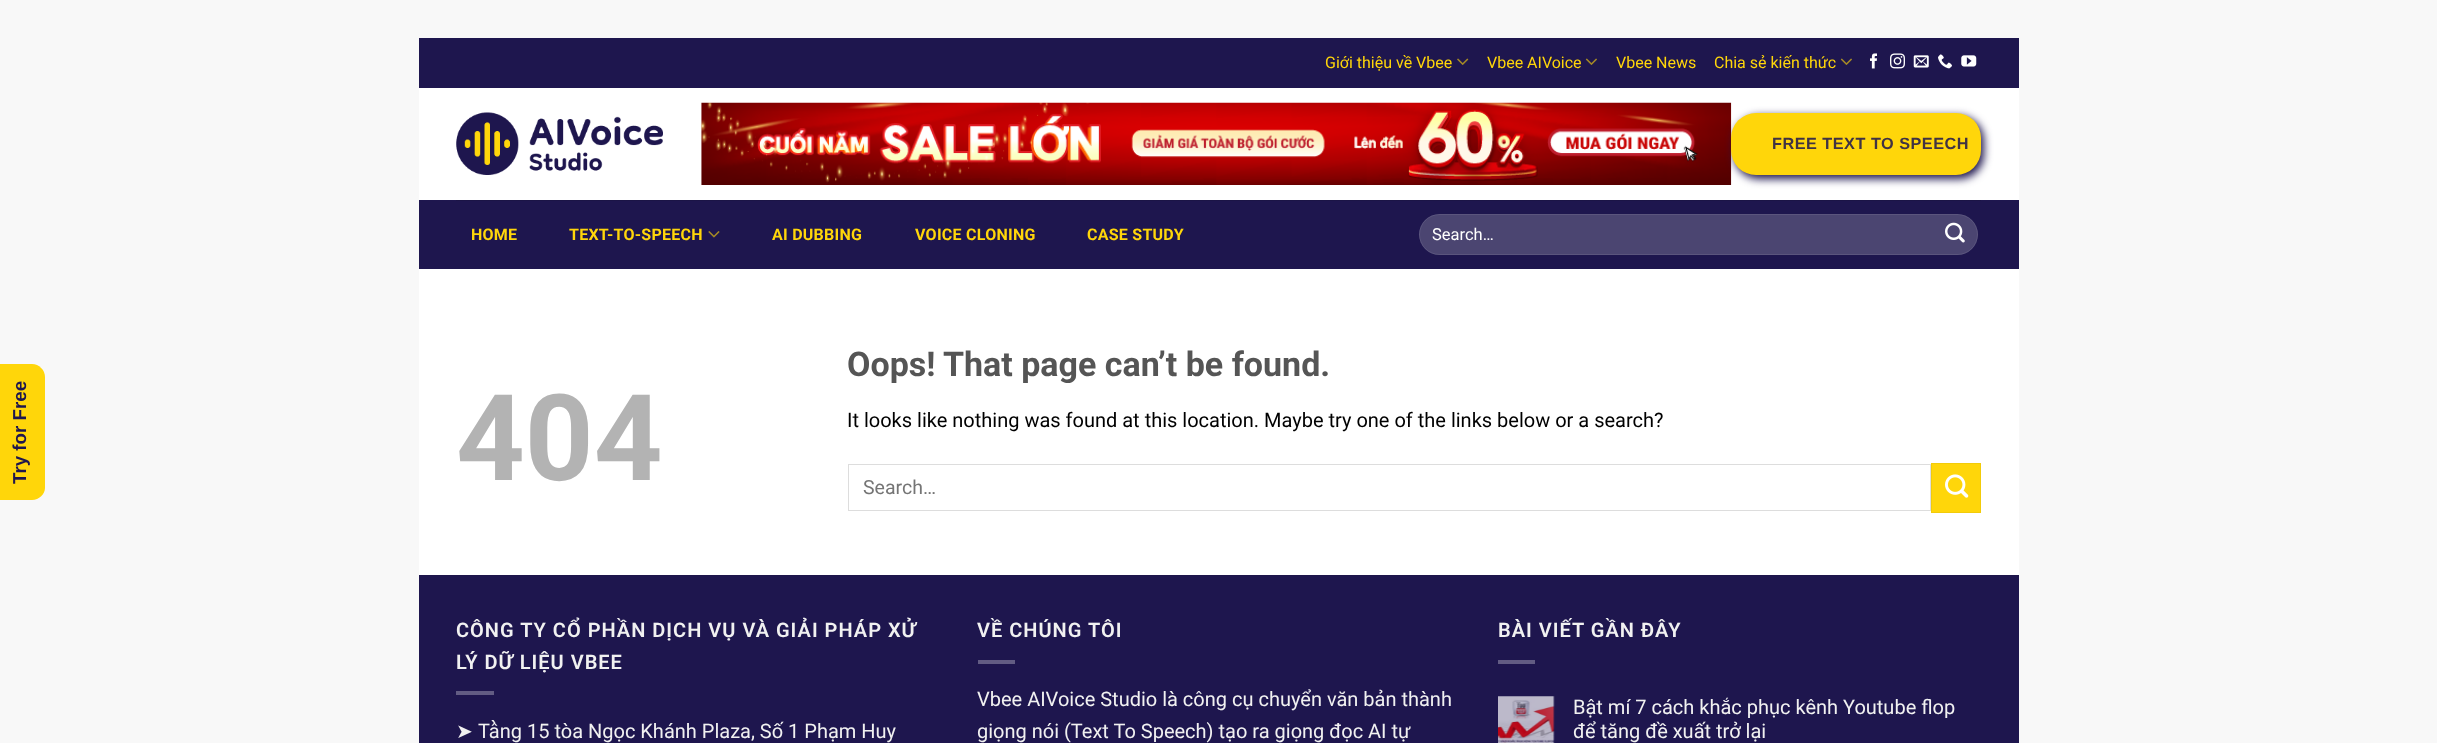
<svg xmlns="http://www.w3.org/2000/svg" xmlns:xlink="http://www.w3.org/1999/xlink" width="2437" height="743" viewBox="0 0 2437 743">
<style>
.cls-1{font:bold 18.75px Liberation Sans;fill:#1e164e}
.cls-2{font:16px Roboto;fill:#ffd60a}
.cls-3{font:bold 16.25px Liberation Sans;letter-spacing:0.5px;fill:#403344}
.cls-4{font:bold 16px Roboto;letter-spacing:0.25px;fill:#ffd60a}
.cls-5{font:16.5px Roboto;fill:#ffffff}
.cls-6{font:bold 120px Roboto;fill:#b3b3b3}
.cls-7{font:bold 34px Roboto;fill:#555555}
.cls-8{font:20px Roboto;fill:#000000}
.cls-9{font:19.5px Roboto;fill:#757575}
.cls-10{font:600 20px Roboto;letter-spacing:1px;fill:#f1f1f1}
.cls-11{font:20px DejaVu Sans;fill:#f1f1f1}
.cls-12{font:20px Roboto;fill:#f1f1f1}
</style>
<rect width="100%" height="100%" fill="#f8f8f8"/>
<path fill="#ffd60a" d="M-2 500V364H32C39 364 45 370 45 377V488C45 494 39 500 32 500Z"/>
<rect fill="#ffffff" x="419" y="88" width="1600" height="487"/>
<rect fill="#1e164e" x="419" y="38" width="1600" height="50"/>
<image xlink:href="image0.png" x="1457" y="58" width="12" height="7"/>
<image xlink:href="image1.png" x="1585" y="58" width="12" height="7"/>
<image xlink:href="image1.png" x="1840" y="58" width="12" height="7"/>
<image xlink:href="image2.png" x="1870" y="53" width="7" height="16"/>
<image xlink:href="image3.png" x="1890" y="53" width="15" height="16"/>
<image xlink:href="image4.png" x="1913" y="55" width="16" height="13"/>
<image xlink:href="image5.png" x="1938" y="54" width="14" height="15"/>
<image xlink:href="image6.png" x="1961" y="55" width="16" height="12"/>
<image xlink:href="image7.png" x="456" y="112" width="207" height="63"/>
<image xlink:href="image8.png" x="701" y="102" width="1031" height="83"/>
<rect fill="#1e164e" filter="blur(4.5px)" x="1734" y="116" width="250" height="63" rx="25"/>
<rect fill="#ffd60a" x="1731" y="113" width="250" height="62" rx="25"/>
<rect fill="#1e164e" x="419" y="200" width="1600" height="69"/>
<rect fill="#1b1446" x="456" y="200" width="1525" height="1"/>
<image xlink:href="image9.png" x="708" y="231" width="12" height="7"/>
<rect fill="#4b4571" x="1419" y="214" width="559" height="41" rx="20.5"/>
<rect fill="none" stroke="#ffffff" stroke-opacity="0.09" x="1419.5" y="214.5" width="558" height="40" rx="20"/>
<image xlink:href="image10.png" x="1945" y="222" width="20" height="21"/>
<rect fill="none" stroke="#dddddd" x="848.5" y="464.5" width="1082" height="46"/>
<rect fill="#ffd60a" stroke="#f2cb0a" x="1931.5" y="463.5" width="49" height="49"/>
<image xlink:href="image11.png" x="1945" y="474" width="24" height="24"/>
<rect fill="#1e164e" x="419" y="576" width="1600" height="167"/>
<rect fill="#1d154a" x="419" y="575" width="1600" height="1"/>
<rect fill="#625c83" x="456" y="691" width="38" height="4"/>
<rect fill="#625c83" x="978" y="660" width="37" height="4"/>
<rect fill="#625c83" x="1498" y="660" width="37" height="4"/>
<image xlink:href="image12.png" x="1498" y="696" width="57" height="47"/>
<text class="cls-1" x="26" y="484" transform="rotate(-90 26 484)">Try for Free</text>
<text class="cls-2" x="1325" y="68">Giới thiệu về Vbee</text>
<text class="cls-2" x="1487" y="68">Vbee AIVoice</text>
<text class="cls-2" x="1616" y="68">Vbee News</text>
<text class="cls-2" x="1714" y="68">Chia sẻ kiến thức</text>
<text class="cls-3" x="1772" y="149">FREE TEXT TO SPEECH</text>
<text class="cls-4" x="471" y="240">HOME</text>
<text class="cls-4" x="569" y="240">TEXT-TO-SPEECH</text>
<text class="cls-4" x="772" y="240">AI DUBBING</text>
<text class="cls-4" x="915" y="240">VOICE CLONING</text>
<text class="cls-4" x="1087" y="240">CASE STUDY</text>
<text class="cls-5" x="1432" y="240">Search…</text>
<text class="cls-6" x="456" y="480">404</text>
<text class="cls-7" x="847" y="376">Oops! That page can’t be found.</text>
<text class="cls-8" x="847" y="427">It looks like nothing was found at this location. Maybe try one of the links below or a search?</text>
<text class="cls-9" x="863" y="494">Search…</text>
<text class="cls-10"><tspan x="456" y="637">CÔNG TY CỔ PHẦN DỊCH VỤ VÀ GIẢI PHÁP XỬ</tspan><tspan x="456" y="669">LÝ DỮ LIỆU VBEE</tspan></text>
<text class="cls-11" x="456" y="738">➤</text>
<text class="cls-12" x="478" y="738">Tầng 15 tòa Ngọc Khánh Plaza, Số 1 Phạm Huy</text>
<text class="cls-10" x="977" y="637">VỀ CHÚNG TÔI</text>
<text class="cls-12"><tspan x="977" y="706">Vbee AIVoice Studio là công cụ chuyển văn bản thành</tspan><tspan x="977" y="738">giọng nói (Text To Speech) tạo ra giọng đọc AI tự</tspan></text>
<text class="cls-10" x="1498" y="637">BÀI VIẾT GẦN ĐÂY</text>
<text class="cls-12"><tspan x="1573" y="714">Bật mí 7 cách khắc phục kênh Youtube flop</tspan><tspan x="1573" y="738">để tăng đề xuất trở lại</tspan></text>
</svg>
